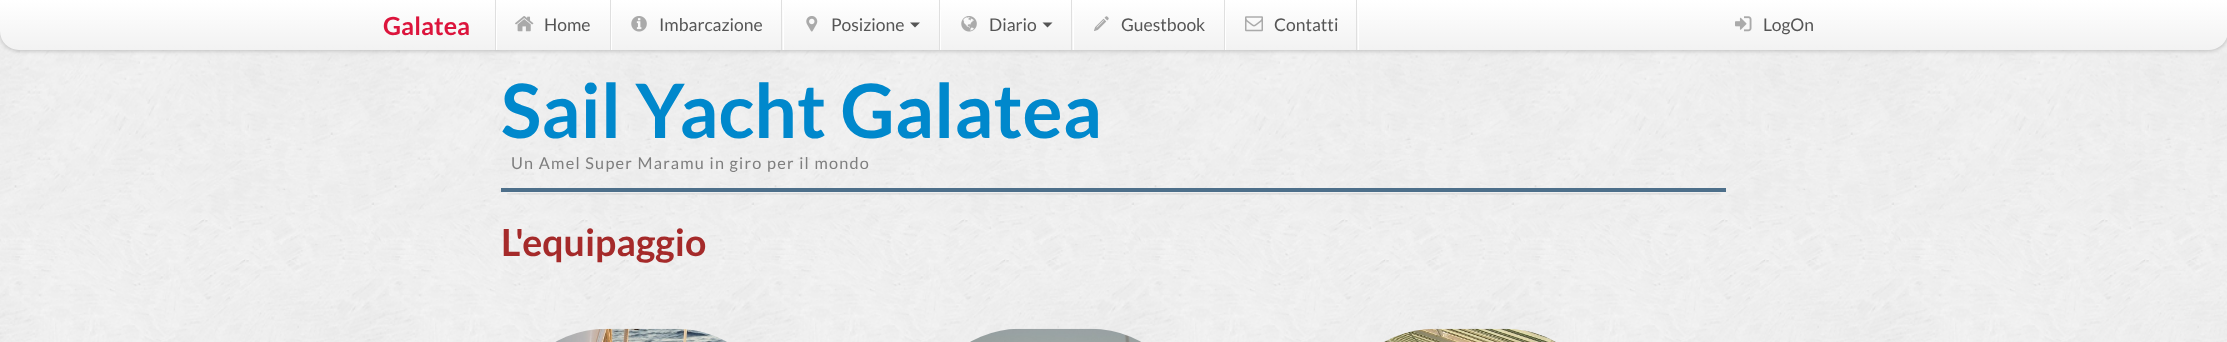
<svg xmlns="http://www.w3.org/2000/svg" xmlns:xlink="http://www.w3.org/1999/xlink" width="2227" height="342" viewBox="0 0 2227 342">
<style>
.cls-1{font:bold 25px Lato;fill:#dc143c}
.cls-2{font:17.5px Lato;fill:#555555}
.cls-3{font:bold 75px Lato;fill:#0088cc}
.cls-4{font:16.25px Lato;letter-spacing:1.25px;fill:#7e7e7e}
.cls-5{font:bold 37.5px Lato;fill:#a52a2a}
</style>
<defs>
<linearGradient id="g1" gradientUnits="userSpaceOnUse" x1="1114" y1="0" x2="1114" y2="50"><stop offset="0" stop-color="#ffffff"/><stop offset="1" stop-color="#f2f2f2"/></linearGradient>
<clipPath id="clip1"><rect x="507" y="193" width="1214" height="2"/></clipPath>
</defs>
<rect width="100%" height="100%" fill="#eeeeee"/>
<image xlink:href="image0.png" x="0" y="31" width="2227" height="311"/>
<rect fill="#000000" fill-opacity="0.2" filter="blur(2px)" x="0" y="1" width="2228" height="50" rx="19"/>
<path fill="url(#g1)" d="M0 0H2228V31C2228 41.5 2219.5 50 2209 50H19C8.5 50 0 41.5 0 31Z"/>
<rect fill="#ffffff" x="496" y="10" width="1" height="40"/>
<rect fill="#dfdfdf" x="495" y="0" width="1" height="50"/>
<image xlink:href="image1.png" x="515" y="16" width="19" height="16"/>
<rect fill="#ffffff" x="611" y="10" width="1" height="40"/>
<rect fill="#dfdfdf" x="610" y="0" width="1" height="50"/>
<image xlink:href="image2.png" x="631" y="16" width="16" height="16"/>
<rect fill="#ffffff" x="783" y="10" width="1" height="40"/>
<rect fill="#dfdfdf" x="781" y="0" width="1" height="50"/>
<image xlink:href="image3.png" x="806" y="16" width="12" height="16"/>
<path fill="#555555" d="M910 22.5H920L915 27.5Z"/>
<rect fill="#ffffff" x="940" y="10" width="1" height="40"/>
<rect fill="#dfdfdf" x="939" y="0" width="1" height="50"/>
<image xlink:href="image4.png" x="961" y="16" width="16" height="16"/>
<path fill="#555555" d="M1042.5 22.5H1052.5L1047.5 27.5Z"/>
<rect fill="#ffffff" x="1073" y="10" width="1" height="40"/>
<rect fill="#dfdfdf" x="1071" y="0" width="1" height="50"/>
<image xlink:href="image5.png" x="1094" y="16" width="15" height="15"/>
<rect fill="#ffffff" x="1225" y="10" width="1" height="40"/>
<rect fill="#dfdfdf" x="1224" y="0" width="1" height="50"/>
<image xlink:href="image6.png" x="1245" y="16" width="18" height="16"/>
<rect fill="#ffffff" x="1358" y="10" width="1" height="40"/>
<rect fill="#dfdfdf" x="1356" y="0" width="1" height="50"/>
<image xlink:href="image7.png" x="1735" y="16" width="17" height="16"/>
<g clip-path="url(#clip1)">
<rect fill="#000000" fill-opacity="0.3" filter="blur(3px)" x="508" y="98" width="1212" height="93"/>
</g>
<rect fill="#efefef" x="503" y="192" width="1222" height="1"/>
<rect fill="#4d6f8a" x="501" y="188" width="1225" height="4"/>
<image xlink:href="image8.png" x="555" y="328" width="172" height="14"/>
<image xlink:href="image9.png" x="970" y="328" width="171" height="14"/>
<image xlink:href="image10.png" x="1384" y="328" width="172" height="14"/>
<text class="cls-1" x="383" y="35">Galatea</text>
<text class="cls-2" x="544" y="31">Home</text>
<text class="cls-2" x="659" y="31">Imbarcazione</text>
<text class="cls-2" x="831" y="31">Posizione</text>
<text class="cls-2" x="989" y="31">Diario</text>
<text class="cls-2" x="1121" y="31">Guestbook</text>
<text class="cls-2" x="1274" y="31">Contatti</text>
<text class="cls-2" x="1763" y="31">LogOn</text>
<text class="cls-3" x="501" y="138">Sail Yacht Galatea</text>
<text class="cls-4" x="511" y="169">Un Amel Super Maramu in giro per il mondo</text>
<text class="cls-5" x="501" y="256">L'equipaggio</text>
</svg>
